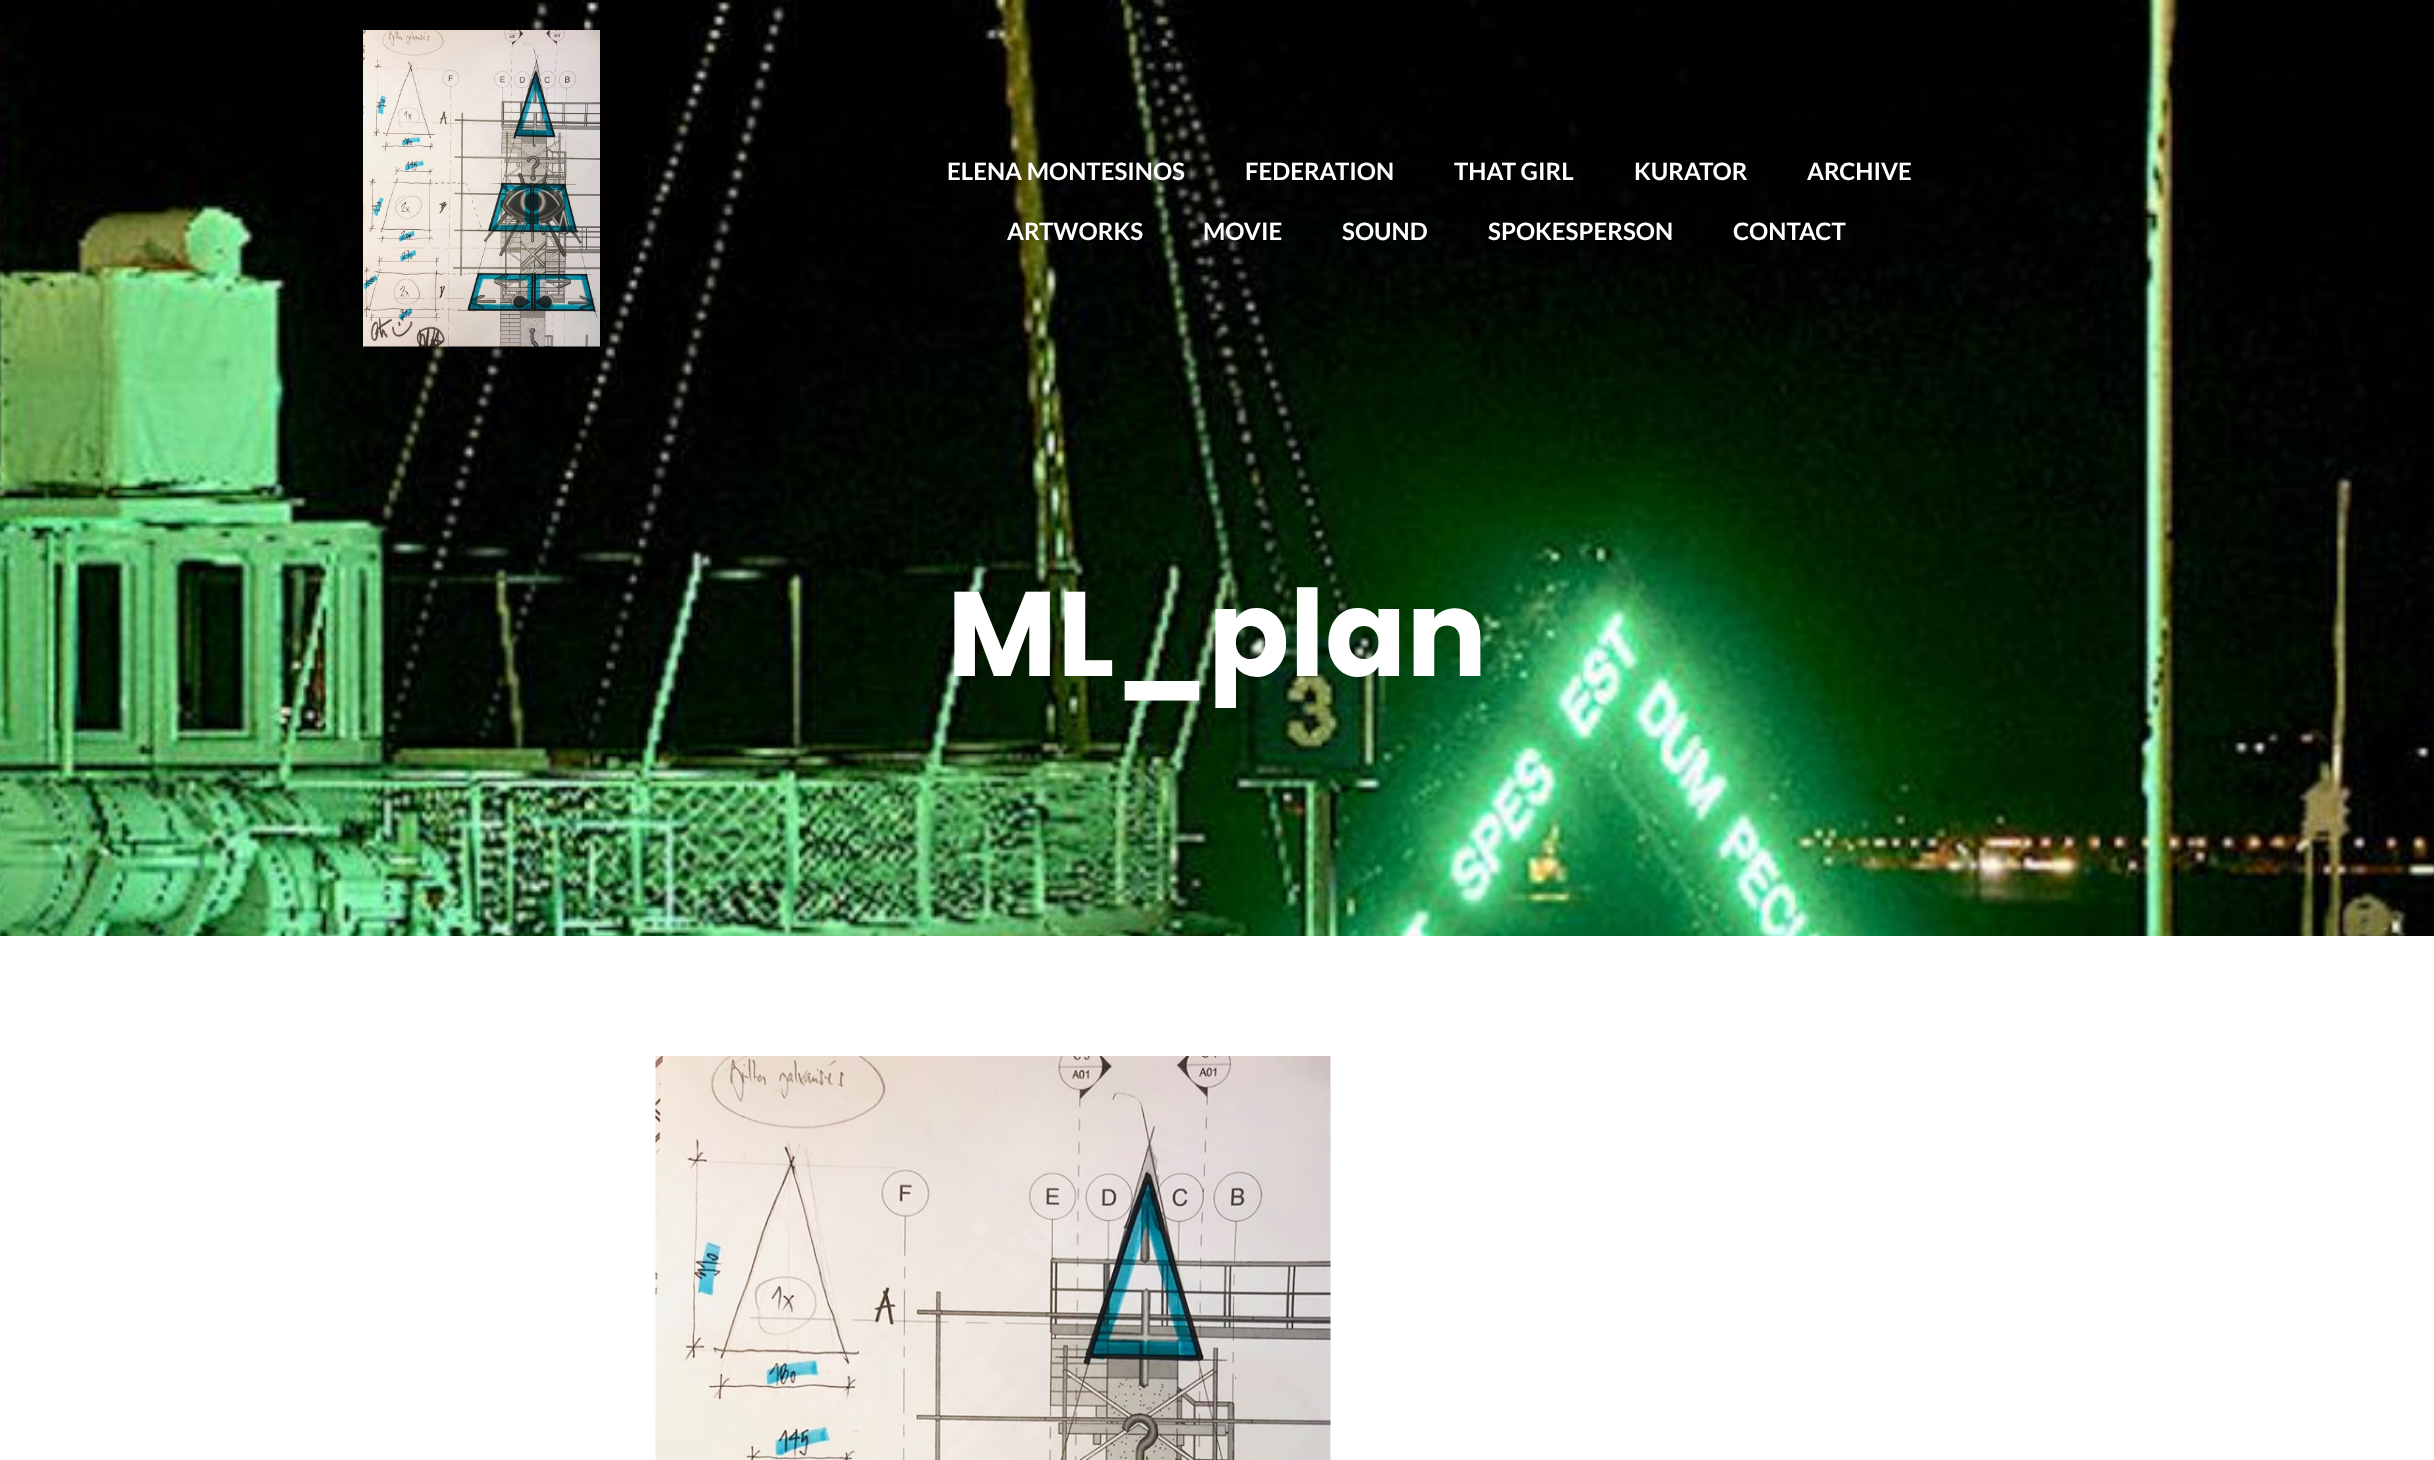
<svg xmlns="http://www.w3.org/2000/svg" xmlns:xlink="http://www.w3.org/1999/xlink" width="2434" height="1460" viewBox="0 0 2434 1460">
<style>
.cls-1{font:bold 24px Lato;fill:#ffffff}
.cls-2{font:bold 120px Poppins;fill:#ffffff}
</style>
<rect width="100%" height="100%" fill="#ffffff"/>
<image xlink:href="image0.png" x="0" y="0" width="2434" height="936"/>
<image xlink:href="image1.png" x="363" y="30" width="237" height="317"/>
<image xlink:href="image2.png" x="655" y="1056" width="676" height="404"/>
<text class="cls-1" x="947" y="180">ELENA MONTESINOS</text>
<text class="cls-1" x="1245" y="180">FEDERATION</text>
<text class="cls-1" x="1454" y="180">THAT GIRL</text>
<text class="cls-1" x="1634" y="180">KURATOR</text>
<text class="cls-1" x="1807" y="180">ARCHIVE</text>
<text class="cls-1" x="1007" y="240">ARTWORKS</text>
<text class="cls-1" x="1203" y="240">MOVIE</text>
<text class="cls-1" x="1342" y="240">SOUND</text>
<text class="cls-1" x="1488" y="240">SPOKESPERSON</text>
<text class="cls-1" x="1733" y="240">CONTACT</text>
<text class="cls-2" x="947" y="676">ML_plan</text>
</svg>
